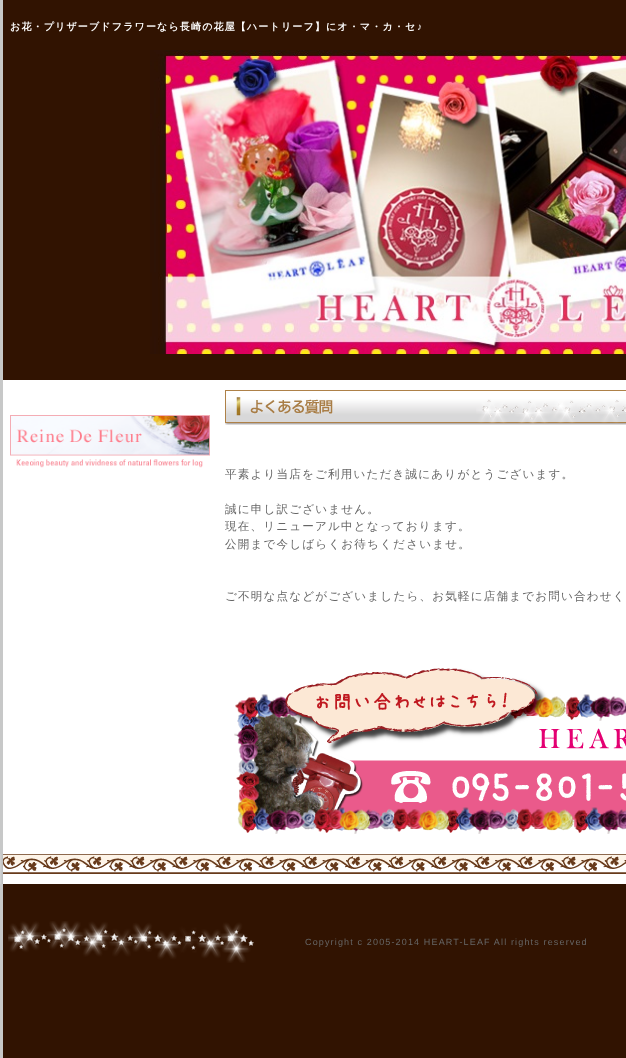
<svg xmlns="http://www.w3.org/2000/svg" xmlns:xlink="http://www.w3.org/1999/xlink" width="626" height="1058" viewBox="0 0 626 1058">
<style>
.cls-1{font:bold 10px WenQuanYi Zen Hei;letter-spacing:1.15px;fill:#ffffff}
.cls-2{font:bold 10px Liberation Sans;letter-spacing:1.15px;fill:#ffffff}
.cls-3{font:500 11.6px WenQuanYi Zen Hei;letter-spacing:1.15px;fill:#666666}
.cls-4{font:9px Liberation Sans;letter-spacing:1.15px;fill:#666666}
</style>
<rect width="100%" height="100%" fill="#311301"/>
<rect fill="#c7c8c8" x="0" y="0" width="3" height="854"/>
<image xlink:href="image0.png" x="150" y="50" width="476" height="304"/>
<rect fill="#ffffff" x="3" y="380" width="623" height="474"/>
<image xlink:href="image1.png" x="10" y="415" width="200" height="53"/>
<image xlink:href="image2.png" x="225" y="390" width="401" height="35"/>
<image xlink:href="image3.png" x="234" y="668" width="392" height="166"/>
<image xlink:href="image4.png" x="0" y="854" width="626" height="30"/>
<rect fill="#c7c8c8" x="0" y="884" width="3" height="174"/>
<image xlink:href="image5.png" x="8" y="921" width="246" height="42"/>
<text class="cls-1" x="10" y="30">お花・プリザーブドフラワーなら長崎の花屋【ハートリーフ】にオ・マ・カ・セ</text>
<text class="cls-2" x="417" y="30">♪</text>
<text class="cls-3" x="225" y="478">平素より当店をご利用いただき誠にありがとうございます。</text>
<text class="cls-3"><tspan x="225" y="513">誠に申し訳ございません。</tspan><tspan x="225" y="530">現在、リニューアル中となっております。</tspan><tspan x="225" y="548">公開まで今しばらくお待ちくださいませ。</tspan></text>
<text class="cls-3" x="225" y="600">ご不明な点などがございましたら、お気軽に店舗までお問い合わせく</text>
<text class="cls-4" x="305" y="945">Copyright c 2005-2014 HEART-LEAF All rights reserved</text>
</svg>
